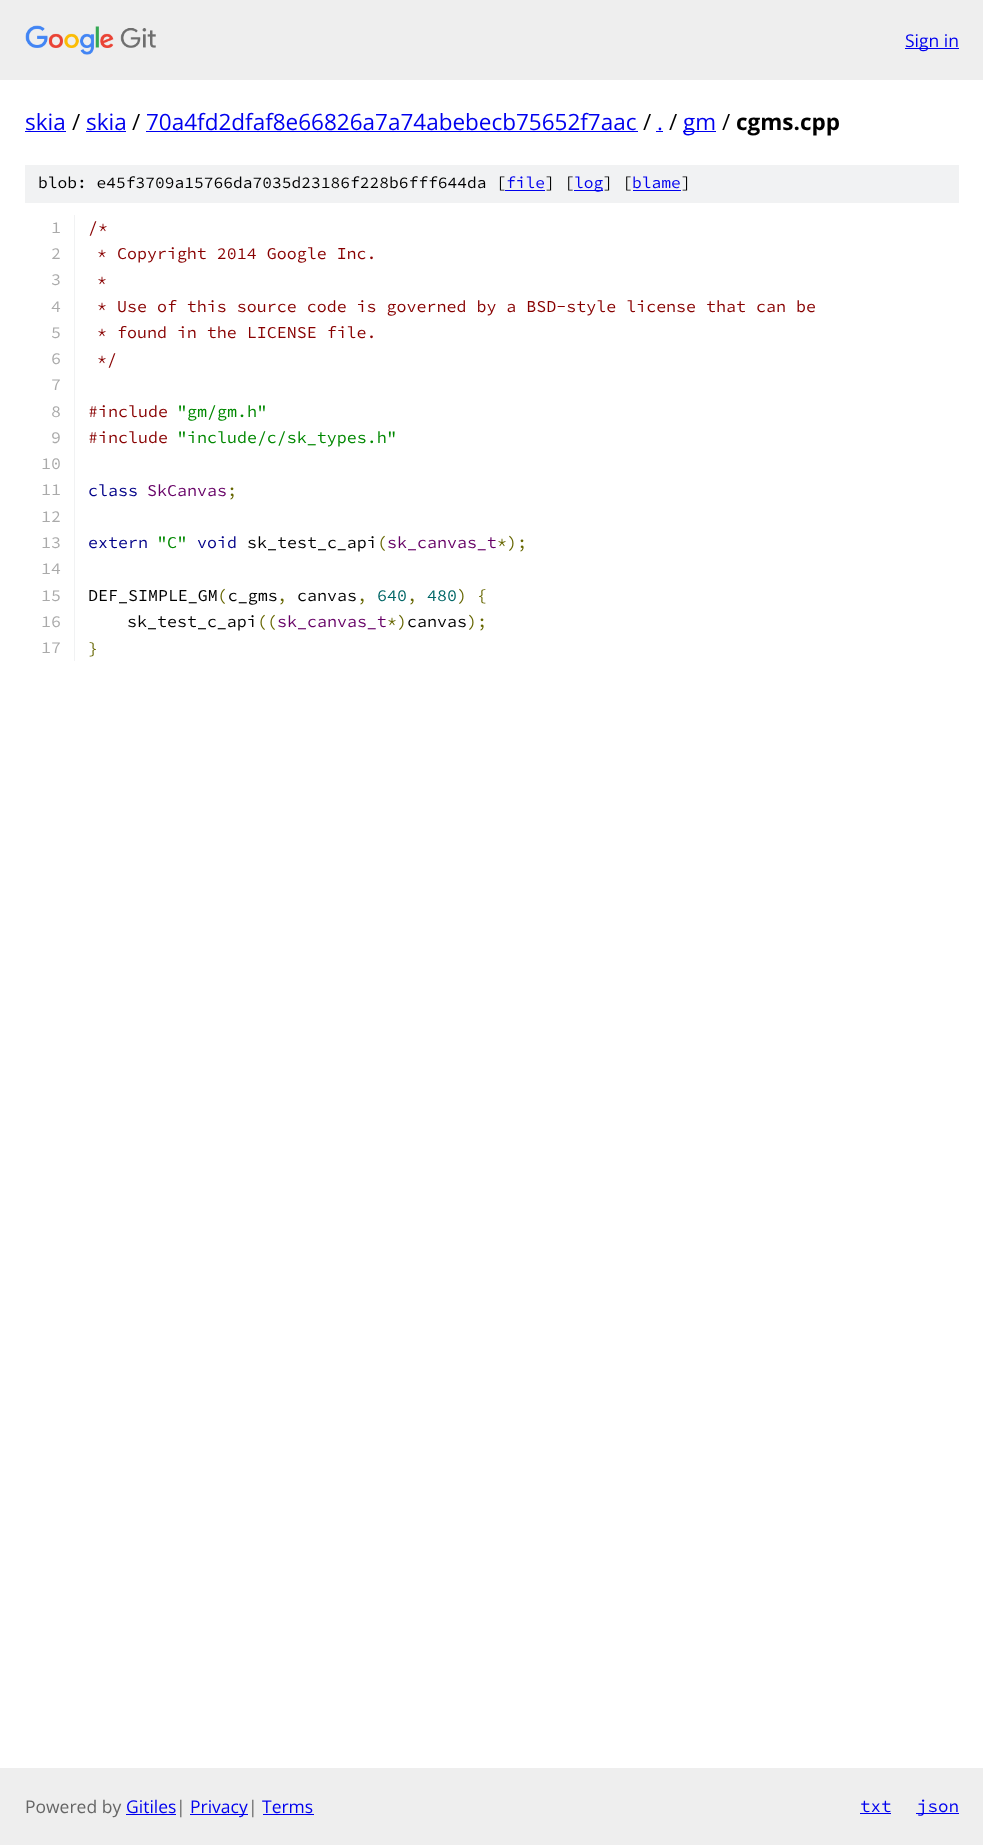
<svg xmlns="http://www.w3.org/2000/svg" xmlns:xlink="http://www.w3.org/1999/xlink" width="983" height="1845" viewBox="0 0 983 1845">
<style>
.cls-1{font:17.5px Open Sans;fill:#0000ee}
.cls-2{font:22.5px Open Sans;fill:#0000ee}
.cls-3{font:22.5px Open Sans;fill:#000000}
.cls-4{font:bold 22.5px Open Sans;fill:#000000}
.cls-5{font:200 16.25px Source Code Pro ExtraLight;fill:#000000}
.cls-6{font:200 16.25px Source Code Pro ExtraLight;fill:#0000ee}
.cls-7{font:200 16.65px Source Code Pro ExtraLight;fill:#aaaaaa}
.cls-8{font:200 16.65px Source Code Pro ExtraLight;fill:#880000}
.cls-9{font:200 16.65px Source Code Pro ExtraLight;fill:#008800}
.cls-10{font:200 16.65px Source Code Pro ExtraLight;fill:#000088}
.cls-11{font:200 16.65px Source Code Pro ExtraLight;fill:#660066}
.cls-12{font:200 16.65px Source Code Pro ExtraLight;fill:#666600}
.cls-13{font:200 16.65px Source Code Pro ExtraLight;fill:#000000}
.cls-14{font:200 16.65px Source Code Pro ExtraLight;fill:#006666}
.cls-15{font:17.5px Open Sans;fill:#666666}
.cls-16{font:200 17.5px Source Code Pro ExtraLight;fill:#0000ee}
</style>
<rect width="100%" height="100%" fill="#ffffff"/>
<rect fill="#eeeeee" x="0" y="0" width="983" height="80"/>
<image xlink:href="image0.png" x="25" y="25" width="131" height="30"/>
<rect fill="#0000ee" x="905" y="48" width="54" height="1"/>
<rect fill="#0000ee" x="25" y="131" width="41" height="1"/>
<rect fill="#0000ee" x="86" y="131" width="40" height="1"/>
<rect fill="#0000ee" x="146" y="131" width="492" height="1"/>
<rect fill="#0000ee" x="656" y="131" width="7" height="1"/>
<rect fill="#0000ee" x="683" y="131" width="33" height="1"/>
<rect fill="#f1f2f3" x="25" y="165" width="934" height="38"/>
<rect fill="#0000ee" x="505" y="190" width="40" height="1"/>
<rect fill="#0000ee" x="574" y="190" width="29" height="1"/>
<rect fill="#0000ee" x="633" y="190" width="48" height="1"/>
<rect fill="#f1f2f3" x="74" y="215" width="1" height="446"/>
<rect fill="#eeeeee" x="0" y="1768" width="983" height="77"/>
<rect fill="#0000ee" x="126" y="1814" width="50" height="1"/>
<rect fill="#0000ee" x="190" y="1814" width="58" height="1"/>
<rect fill="#0000ee" x="263" y="1814" width="51" height="1"/>
<rect fill="#0000ee" x="860" y="1813" width="31" height="1"/>
<rect fill="#0000ee" x="916" y="1813" width="43" height="1"/>
<text class="cls-1" x="905" y="47">Sign in</text>
<text class="cls-2" x="25" y="130">skia</text>
<text class="cls-3" x="72" y="130">/</text>
<text class="cls-2" x="86" y="130">skia</text>
<text class="cls-3" x="132" y="130">/</text>
<text class="cls-2" x="146" y="130">70a4fd2dfaf8e66826a7a74abebecb75652f7aac</text>
<text class="cls-3" x="643" y="130">/</text>
<text class="cls-2" x="657" y="130">.</text>
<text class="cls-3" x="669" y="130">/</text>
<text class="cls-2" x="683" y="130">gm</text>
<text class="cls-3" x="722" y="130">/</text>
<text class="cls-4" x="736" y="130">cgms.cpp</text>
<text class="cls-5" x="38" y="188">blob: e45f3709a15766da7035d23186f228b6fff644da [</text>
<text class="cls-6" x="506" y="188">file</text>
<text class="cls-5" x="545" y="188">] [</text>
<text class="cls-6" x="574" y="188">log</text>
<text class="cls-5" x="603" y="188">] [</text>
<text class="cls-6" x="632" y="188">blame</text>
<text class="cls-5" x="681" y="188">]</text>
<text class="cls-7" x="51" y="233">1</text>
<text class="cls-8" x="88" y="233">/*</text>
<text class="cls-7" x="51" y="259">2</text>
<text class="cls-8" x="97" y="259">* Copyright 2014 Google Inc.</text>
<text class="cls-7" x="51" y="285">3</text>
<text class="cls-8" x="97" y="286">*</text>
<text class="cls-7" x="51" y="312">4</text>
<text class="cls-8" x="97" y="312">* Use of this source code is governed by a BSD-style license that can be</text>
<text class="cls-7" x="51" y="338">5</text>
<text class="cls-8" x="97" y="338">* found in the LICENSE file.</text>
<text class="cls-7" x="51" y="364">6</text>
<text class="cls-8" x="97" y="365">*/</text>
<text class="cls-7"><tspan x="51" y="390">7</tspan><tspan x="51" y="417">8</tspan></text>
<text class="cls-8" x="88" y="417">#include</text>
<text class="cls-9" x="177" y="417">"gm/gm.h"</text>
<text class="cls-7" x="51" y="443">9</text>
<text class="cls-8" x="88" y="443">#include</text>
<text class="cls-9" x="177" y="443">"include/c/sk_types.h"</text>
<text class="cls-7"><tspan x="41" y="469">10</tspan><tspan x="41" y="495">11</tspan></text>
<text class="cls-10" x="88" y="496">class</text>
<text class="cls-11" x="147" y="496">SkCanvas</text>
<text class="cls-12" x="227" y="496">;</text>
<text class="cls-7"><tspan x="41" y="522">12</tspan><tspan x="41" y="548">13</tspan></text>
<text class="cls-10" x="88" y="548">extern</text>
<text class="cls-9" x="157" y="548">"C"</text>
<text class="cls-10" x="197" y="548">void</text>
<text class="cls-13" x="247" y="548">sk_test_c_api</text>
<text class="cls-12" x="377" y="548">(</text>
<text class="cls-11" x="387" y="548">sk_canvas_t</text>
<text class="cls-12" x="497" y="548">*);</text>
<text class="cls-7"><tspan x="41" y="574">14</tspan><tspan x="41" y="601">15</tspan></text>
<text class="cls-12" x="457" y="601">) {</text>
<text class="cls-13" x="88" y="601">DEF_SIMPLE_GM c_gms</text>
<text class="cls-12" x="217" y="601">(</text>
<text class="cls-12" x="277" y="601">,</text>
<text class="cls-13" x="297" y="601">canvas</text>
<text class="cls-12" x="357" y="601">,</text>
<text class="cls-14" x="377" y="601">640</text>
<text class="cls-12" x="407" y="601">,</text>
<text class="cls-14" x="427" y="601">480</text>
<text class="cls-7" x="41" y="627">16</text>
<text class="cls-13" x="127" y="627">sk_test_c_api</text>
<text class="cls-12" x="257" y="627">((</text>
<text class="cls-11" x="277" y="627">sk_canvas_t</text>
<text class="cls-12" x="387" y="627">*)</text>
<text class="cls-13" x="407" y="627">canvas</text>
<text class="cls-12" x="467" y="627">);</text>
<text class="cls-7" x="41" y="653">17</text>
<text class="cls-12" x="88" y="654">}</text>
<text class="cls-15" x="25" y="1813">Powered by</text>
<text class="cls-1" x="126" y="1813">Gitiles</text>
<text class="cls-15" x="176" y="1813">|</text>
<text class="cls-1" x="190" y="1813">Privacy</text>
<text class="cls-15" x="248" y="1813">|</text>
<text class="cls-1" x="262" y="1813">Terms</text>
<text class="cls-16" x="860" y="1812">txt</text>
<text class="cls-16" x="917" y="1812">json</text>
</svg>
